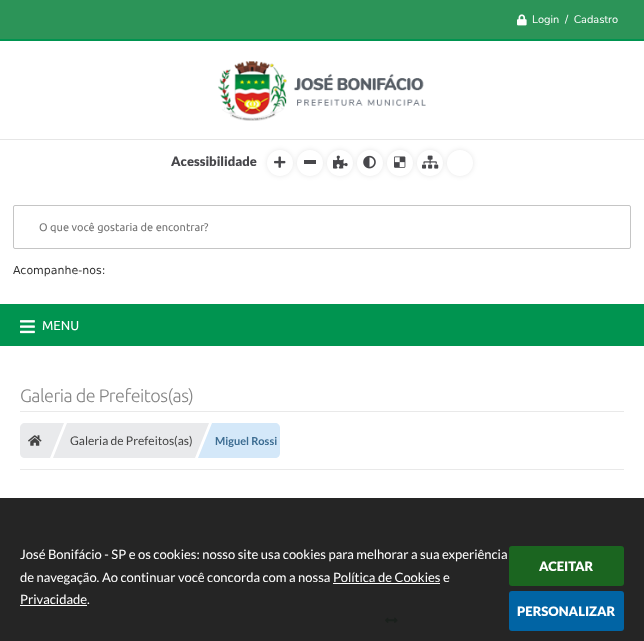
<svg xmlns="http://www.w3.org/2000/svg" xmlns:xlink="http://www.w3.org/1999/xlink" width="644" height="641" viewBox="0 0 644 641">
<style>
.cls-1{font:11px Nunito;fill:#ffffff}
.cls-2{font:13px Lato;fill:#ffffff}
.cls-3{font:900 13px Lato;fill:#ffffff}
.cls-4{font:900 13px Lato;fill:#47474b}
.cls-5{font:11px Ubuntu;fill:#757575}
.cls-6{font:11px DejaVu Sans;fill:#333333}
.cls-7{font:13px Ubuntu;fill:#ffffff}
.cls-8{font:300 18px Ubuntu;letter-spacing:-0.5px;fill:#868686}
.cls-9{font:12px Lato;fill:#444444}
.cls-10{font:bold 11px Lato;fill:#3d6d92}
</style>
<rect width="100%" height="100%" fill="#ffffff"/>
<rect fill="#252525" x="0" y="498" width="644" height="143"/>
<rect fill="#2c9458" x="0" y="0" width="644" height="39"/>
<image xlink:href="image0.png" x="517" y="14" width="10" height="12"/>
<rect fill="#ffffff" x="333" y="583" width="107" height="1"/>
<rect fill="#ffffff" x="20" y="605" width="67" height="1"/>
<rect fill="#1b6520" x="509" y="546" width="115" height="40" rx="3"/>
<rect fill="#0164a4" x="509" y="591" width="115" height="40" rx="3"/>
<rect fill="#009450" x="0" y="39" width="644" height="2"/>
<image xlink:href="image1.png" x="218" y="61" width="208" height="60"/>
<rect fill="#e6e6e6" x="0" y="139" width="644" height="1"/>
<rect fill="#000000" fill-opacity="0.1" filter="blur(2.5px)" x="267" y="150" width="26" height="26" rx="13"/>
<circle fill="#ffffff" cx="280" cy="163" r="13"/>
<image xlink:href="image2.png" x="274" y="156" width="12" height="12"/>
<rect fill="#000000" fill-opacity="0.1" filter="blur(2.5px)" x="297" y="150" width="26" height="26" rx="13"/>
<circle fill="#ffffff" cx="310" cy="163" r="13"/>
<rect fill="#47474b" x="304" y="160" width="12" height="4"/>
<rect fill="#000000" fill-opacity="0.1" filter="blur(2.5px)" x="327" y="150" width="26" height="26" rx="13"/>
<circle fill="#ffffff" cx="340" cy="163" r="13"/>
<image xlink:href="image3.png" x="333" y="155" width="15" height="14"/>
<rect fill="#000000" fill-opacity="0.1" filter="blur(2.5px)" x="357" y="150" width="26" height="26" rx="13"/>
<circle fill="#ffffff" cx="370" cy="163" r="13"/>
<image xlink:href="image4.png" x="363" y="155" width="13" height="14"/>
<rect fill="#000000" fill-opacity="0.1" filter="blur(2.5px)" x="387" y="150" width="26" height="26" rx="13"/>
<circle fill="#ffffff" cx="400" cy="163" r="13"/>
<image xlink:href="image5.png" x="394" y="156" width="12" height="12"/>
<rect fill="#000000" fill-opacity="0.1" filter="blur(2.5px)" x="417" y="150" width="26" height="26" rx="13"/>
<circle fill="#ffffff" cx="430" cy="163" r="13"/>
<image xlink:href="image6.png" x="422" y="155" width="17" height="14"/>
<rect fill="#000000" fill-opacity="0.1" filter="blur(2.5px)" x="447" y="150" width="26" height="26" rx="13"/>
<circle fill="#ffffff" cx="460" cy="163" r="13"/>
<rect fill="none" stroke="#c5c5c5" x="13.5" y="205.5" width="617" height="43" rx="1.5"/>
<rect fill="#009450" x="0" y="304" width="644" height="42"/>
<image xlink:href="image7.png" x="20" y="320" width="15" height="14"/>
<rect fill="#e9e9e9" x="20" y="411" width="604" height="1"/>
<rect fill="#e9e9e9" x="20" y="469" width="604" height="1"/>
<path fill="#e9eaec" d="M25 423H50V458H25C22 458 20 456 20 453V428C20 425 22 423 25 423Z"/>
<image xlink:href="image8.png" x="28" y="435" width="14" height="11"/>
<path fill="#e9eaec" d="M50 423H64L50 458Z"/>
<rect fill="#e9eaec" x="67" y="423" width="128" height="35"/>
<path fill="#e9eaec" d="M67 458H53L67 423Z"/>
<path fill="#e9eaec" d="M195 423H209L195 458Z"/>
<path fill="#d4e8f9" d="M212 423H275C278 423 280 425 280 428V453C280 456 278 458 275 458H212Z"/>
<path fill="#d4e8f9" d="M212 458H198L212 423Z"/>
<image xlink:href="image9.png" x="385" y="617" width="13" height="6"/>
<text class="cls-1" xml:space="preserve" x="532" y="23">Login  /  Cadastro</text>
<text class="cls-2"><tspan x="20" y="559">José Bonifácio - SP e os cookies: nosso site usa cookies para melhorar a sua experiência</tspan><tspan x="20" y="582">de navegação. Ao continuar você concorda com a nossa Política de Cookies e</tspan><tspan x="20" y="604">Privacidade.</tspan></text>
<text class="cls-3" x="539" y="571">ACEITAR</text>
<text class="cls-3" x="517" y="616">PERSONALIZAR</text>
<text class="cls-4" x="171" y="166">Acessibilidade</text>
<text class="cls-5" x="39" y="231">O que você gostaria de encontrar?</text>
<text class="cls-6" x="13" y="274">Acompanhe-nos:</text>
<text class="cls-7" x="42" y="330">MENU</text>
<text class="cls-8" x="20" y="402">Galeria de Prefeitos(as)</text>
<text class="cls-9" x="70" y="445">Galeria de Prefeitos(as)</text>
<text class="cls-10" x="215" y="445">Miguel Rossi</text>
</svg>
